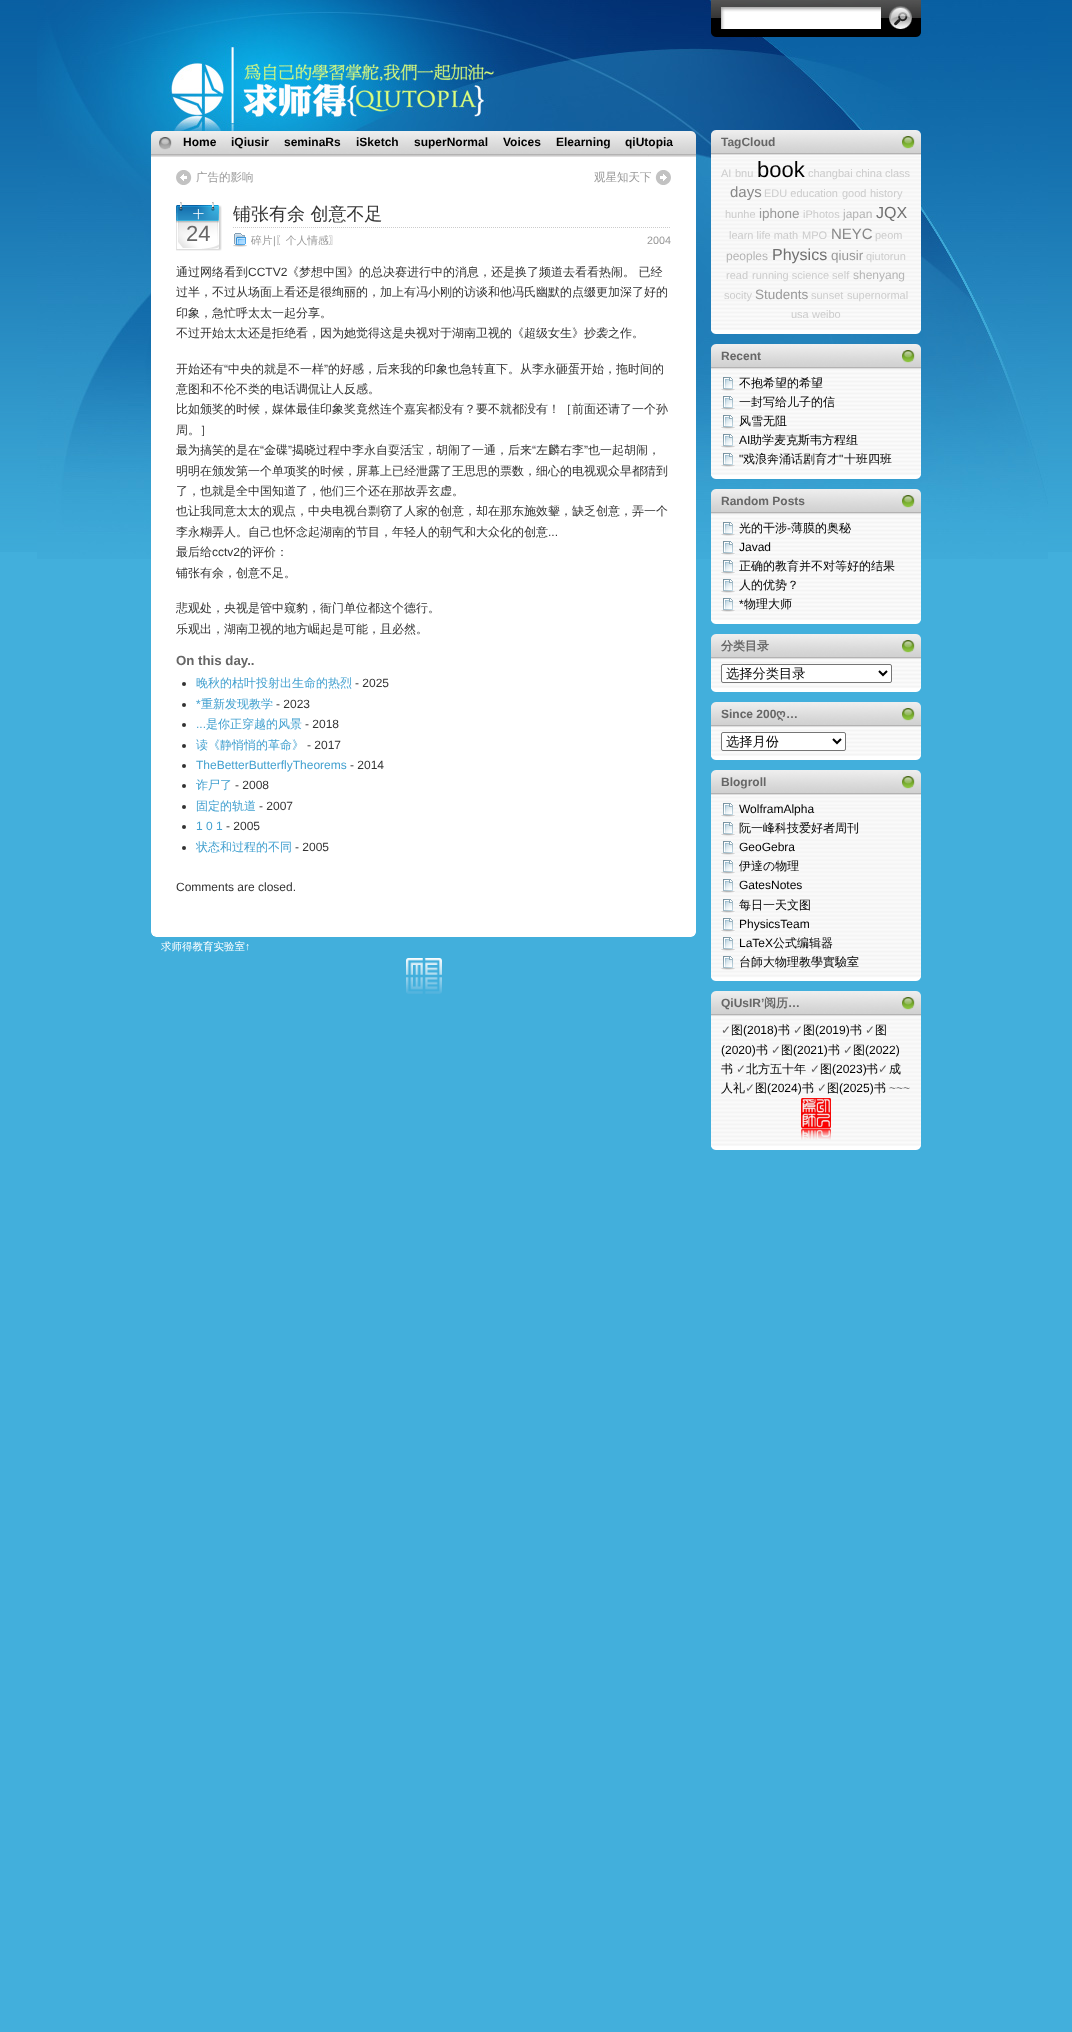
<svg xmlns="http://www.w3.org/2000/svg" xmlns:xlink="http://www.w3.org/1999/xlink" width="1072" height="2032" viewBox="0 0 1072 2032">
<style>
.cls-1{font:bold 12px Liberation Sans;fill:#000000}
.cls-2{font:500 11.5px WenQuanYi Zen Hei;fill:#999999}
.cls-3{font:500 11px WenQuanYi Zen Hei;fill:#ffffff}
.cls-4{font:22px Liberation Sans;fill:#666666}
.cls-5{font:500 18px WenQuanYi Zen Hei;fill:#333333}
.cls-6{font:500 10.75px WenQuanYi Zen Hei;fill:#999999}
.cls-7{font:10.75px Liberation Sans;fill:#999999}
.cls-8{font:500 12px WenQuanYi Zen Hei;fill:#333333}
.cls-9{font:12px Liberation Sans;fill:#333333}
.cls-10{font:bold 13.25px Liberation Sans;fill:#666666}
.cls-11{font:500 12px WenQuanYi Zen Hei;fill:#44a1d0}
.cls-12{font:12px Liberation Sans;fill:#44a1d0}
.cls-13{font:500 10.5px WenQuanYi Zen Hei;fill:#ffffff}
.cls-14{font:10.5px Liberation Sans;fill:#ffffff}
.cls-15{font:bold 12px Liberation Sans;fill:#666666}
.cls-16{font:11px Liberation Sans;fill:#cccccc}
.cls-17{font:22px Liberation Sans;fill:#000000}
.cls-18{font:15px Liberation Sans;fill:#888888}
.cls-19{font:13.5px Liberation Sans;fill:#999999}
.cls-20{font:12px Liberation Sans;fill:#b5b5b5}
.cls-21{font:16px Liberation Sans;fill:#717171}
.cls-22{font:500 12px WenQuanYi Zen Hei;fill:#000000}
.cls-23{font:12px Liberation Sans;fill:#000000}
.cls-24{font:bold 12px WenQuanYi Zen Hei;fill:#666666}
.cls-25{font:500 13.25px WenQuanYi Zen Hei;fill:#000000}
.cls-26{font:bold 12px DejaVu Sans;fill:#666666}
.cls-27{font:12px DejaVu Sans;fill:#666666}
.cls-28{font:12px Liberation Sans;fill:#666666}
</style>
<rect width="100%" height="100%" fill="#42afdc"/>
<image xlink:href="image0.png" x="0" y="0" width="1072" height="552"/>
<image xlink:href="image1.png" x="37" y="0" width="1011" height="559"/>
<image xlink:href="image2.png" x="711" y="0" width="210" height="37"/>
<image xlink:href="image3.png" x="721" y="7" width="160" height="22"/>
<image xlink:href="image4.png" x="889" y="6" width="23" height="23"/>
<image xlink:href="image5.png" x="151" y="131" width="545" height="26"/>
<rect fill="#ffffff" x="151" y="157" width="545" height="770"/>
<image xlink:href="image6.png" x="176" y="170" width="16" height="15"/>
<image xlink:href="image7.png" x="655" y="170" width="16" height="15"/>
<image xlink:href="image8.png" x="176" y="202" width="46" height="49"/>
<path fill="none" stroke="#cccccc" stroke-dasharray="1 1" d="M233 227.5H671"/>
<image xlink:href="image9.png" x="233" y="233" width="14" height="14"/>
<circle fill="#333333" cx="184" cy="684" r="2"/>
<circle fill="#333333" cx="184" cy="705" r="2"/>
<circle fill="#333333" cx="184" cy="725" r="2"/>
<circle fill="#333333" cx="184" cy="746" r="2"/>
<circle fill="#333333" cx="184" cy="766" r="2"/>
<circle fill="#333333" cx="184" cy="786" r="2"/>
<circle fill="#333333" cx="184" cy="807" r="2"/>
<circle fill="#333333" cx="184" cy="827" r="2"/>
<circle fill="#333333" cx="184" cy="848" r="2"/>
<image xlink:href="image10.png" x="151" y="927" width="545" height="10"/>
<image xlink:href="image11.png" x="406" y="958" width="36" height="36"/>
<image xlink:href="image12.png" x="711" y="130" width="210" height="25"/>
<image xlink:href="image13.png" x="902" y="136" width="13" height="13"/>
<image xlink:href="image14.png" x="711" y="155" width="210" height="179"/>
<image xlink:href="image15.png" x="711" y="344" width="210" height="25"/>
<image xlink:href="image13.png" x="902" y="350" width="13" height="13"/>
<image xlink:href="image16.png" x="711" y="369" width="210" height="110"/>
<image xlink:href="image17.png" x="721" y="377" width="14" height="14"/>
<image xlink:href="image18.png" x="721" y="396" width="14" height="14"/>
<image xlink:href="image19.png" x="721" y="415" width="14" height="14"/>
<image xlink:href="image20.png" x="721" y="434" width="14" height="14"/>
<image xlink:href="image17.png" x="721" y="453" width="14" height="14"/>
<image xlink:href="image21.png" x="711" y="489" width="210" height="25"/>
<image xlink:href="image13.png" x="902" y="495" width="13" height="13"/>
<image xlink:href="image22.png" x="711" y="514" width="210" height="110"/>
<image xlink:href="image17.png" x="721" y="522" width="14" height="14"/>
<image xlink:href="image18.png" x="721" y="541" width="14" height="14"/>
<image xlink:href="image19.png" x="721" y="560" width="14" height="14"/>
<image xlink:href="image20.png" x="721" y="579" width="14" height="14"/>
<image xlink:href="image17.png" x="721" y="598" width="14" height="14"/>
<image xlink:href="image23.png" x="711" y="634" width="210" height="25"/>
<image xlink:href="image13.png" x="902" y="640" width="13" height="13"/>
<image xlink:href="image24.png" x="711" y="659" width="210" height="33"/>
<rect fill="#ffffff" stroke="#767676" x="721.5" y="664.5" width="170" height="18" rx="1.5"/>
<path fill="none" stroke="#000000" stroke-width="2" d="M879 671L883 675L887 671"/>
<image xlink:href="image23.png" x="711" y="702" width="210" height="25"/>
<image xlink:href="image13.png" x="902" y="708" width="13" height="13"/>
<image xlink:href="image24.png" x="711" y="727" width="210" height="33"/>
<rect fill="#ffffff" stroke="#767676" x="721.5" y="732.5" width="124" height="18" rx="1.5"/>
<path fill="none" stroke="#000000" stroke-width="2" d="M833 739L837 743L841 739"/>
<image xlink:href="image23.png" x="711" y="770" width="210" height="25"/>
<image xlink:href="image13.png" x="902" y="776" width="13" height="13"/>
<image xlink:href="image25.png" x="711" y="795" width="210" height="186"/>
<image xlink:href="image26.png" x="721" y="803" width="14" height="14"/>
<image xlink:href="image27.png" x="721" y="822" width="14" height="14"/>
<image xlink:href="image28.png" x="721" y="841" width="14" height="14"/>
<image xlink:href="image29.png" x="721" y="860" width="14" height="14"/>
<image xlink:href="image30.png" x="721" y="879" width="14" height="14"/>
<image xlink:href="image31.png" x="721" y="899" width="14" height="14"/>
<image xlink:href="image32.png" x="721" y="918" width="14" height="14"/>
<image xlink:href="image33.png" x="721" y="937" width="14" height="14"/>
<image xlink:href="image34.png" x="721" y="956" width="14" height="14"/>
<image xlink:href="image23.png" x="711" y="991" width="210" height="25"/>
<image xlink:href="image13.png" x="902" y="997" width="13" height="13"/>
<image xlink:href="image35.png" x="711" y="1016" width="210" height="134"/>
<image xlink:href="image36.png" x="801" y="1098" width="30" height="42"/>
<text class="cls-1" x="183" y="146">Home</text>
<text class="cls-1" x="231" y="146">iQiusir</text>
<text class="cls-1" x="284" y="146">seminaRs</text>
<text class="cls-1" x="356" y="146">iSketch</text>
<text class="cls-1" x="414" y="146">superNormal</text>
<text class="cls-1" x="503" y="146">Voices</text>
<text class="cls-1" x="556" y="146">Elearning</text>
<text class="cls-1" x="625" y="146">qiUtopia</text>
<text class="cls-2" x="196" y="181">广告的影响</text>
<text class="cls-2" x="594" y="181">观星知天下</text>
<text class="cls-3" x="193" y="218">十</text>
<text class="cls-4" x="186" y="241">24</text>
<text class="cls-5" x="233" y="220">铺张有余 创意不足</text>
<text class="cls-6" x="251" y="244">碎片</text>
<text class="cls-7" x="273" y="244">|</text>
<text class="cls-6" x="275" y="244">〖个人情感〗</text>
<text class="cls-7" x="647" y="244">2004</text>
<text class="cls-8" x="176" y="276">通过网络看到</text>
<text class="cls-9" x="248" y="276">CCTV2</text>
<text class="cls-8" x="287" y="276">《梦想中国》的总决赛进行中的消息，还是换了频道去看看热闹。 已经</text>
<text class="cls-8"><tspan x="176" y="296">过半，不过从场面上看还是很绚丽的，加上有冯小刚的访谈和他冯氏幽默的点缀更加深了好的</tspan><tspan x="176" y="317">印象，急忙呼太太一起分享。</tspan><tspan x="176" y="337">不过开始太太还是拒绝看，因为她觉得这是央视对于湖南卫视的《超级女生》抄袭之作。</tspan></text>
<text class="cls-8" x="176" y="373">开始还有</text>
<text class="cls-9" x="224" y="373">“</text>
<text class="cls-8" x="228" y="373">中央的就是不一样</text>
<text class="cls-9" x="324" y="373">”</text>
<text class="cls-8" x="328" y="373">的好感，后来我的印象也急转直下。从李永砸蛋开始，拖时间的</text>
<text class="cls-8"><tspan x="176" y="393">意图和不伦不类的电话调侃让人反感。</tspan><tspan x="176" y="413">比如颁奖的时候，媒体最佳印象奖竟然连个嘉宾都没有？要不就都没有！［前面还请了一个孙</tspan><tspan x="176" y="434">周。］</tspan><tspan x="176" y="454">最为搞笑的是在</tspan></text>
<text class="cls-9" x="260" y="454">“</text>
<text class="cls-8" x="264" y="454">金碟</text>
<text class="cls-9" x="288" y="454">”</text>
<text class="cls-8" x="292" y="454">揭晓过程中李永自耍活宝，胡闹了一通，后来</text>
<text class="cls-9" x="532" y="454">“</text>
<text class="cls-8" x="536" y="454">左麟右李</text>
<text class="cls-9" x="584" y="454">”</text>
<text class="cls-8" x="588" y="454">也一起胡闹，</text>
<text class="cls-8"><tspan x="176" y="475">明明在颁发第一个单项奖的时候，屏幕上已经泄露了王思思的票数，细心的电视观众早都猜到</tspan><tspan x="176" y="495">了，也就是全中国知道了，他们三个还在那故弄玄虚。</tspan><tspan x="176" y="515">也让我同意太太的观点，中央电视台剽窃了人家的创意，却在那东施效颦，缺乏创意，弄一个</tspan><tspan x="176" y="536">李永糊弄人。自己也怀念起湖南的节目，年轻人的朝气和大众化的创意</tspan></text>
<text class="cls-9" x="548" y="536">...</text>
<text class="cls-8" x="176" y="556">最后给</text>
<text class="cls-9" x="212" y="556">cctv2</text>
<text class="cls-8" x="240" y="556">的评价：</text>
<text class="cls-8" x="176" y="577">铺张有余，创意不足。</text>
<text class="cls-8"><tspan x="176" y="612">悲观处，央视是管中窥豹，衙门单位都这个德行。</tspan><tspan x="176" y="633">乐观出，湖南卫视的地方崛起是可能，且必然。</tspan></text>
<text class="cls-10" x="176" y="665">On this day..</text>
<text class="cls-11" x="196" y="687">晚秋的枯叶投射出生命的热烈</text>
<text class="cls-9" x="355" y="687">- 2025</text>
<text class="cls-12" x="196" y="708">*</text>
<text class="cls-11" x="201" y="708">重新发现教学</text>
<text class="cls-9" x="276" y="708">- 2023</text>
<text class="cls-12" x="196" y="728">...</text>
<text class="cls-11" x="206" y="728">是你正穿越的风景</text>
<text class="cls-9" x="305" y="728">- 2018</text>
<text class="cls-11" x="196" y="749">读《静悄悄的革命》</text>
<text class="cls-9" x="307" y="749">- 2017</text>
<text class="cls-12" x="196" y="769">TheBetterButterflyTheorems</text>
<text class="cls-9" x="350" y="769">- 2014</text>
<text class="cls-11" x="196" y="789">诈尸了</text>
<text class="cls-9" x="235" y="789">- 2008</text>
<text class="cls-11" x="196" y="810">固定的轨道</text>
<text class="cls-9" x="259" y="810">- 2007</text>
<text class="cls-12" x="196" y="830">1 0 1</text>
<text class="cls-9" x="226" y="830">- 2005</text>
<text class="cls-11" x="196" y="851">状态和过程的不同</text>
<text class="cls-9" x="295" y="851">- 2005</text>
<text class="cls-9" x="176" y="891">Comments are closed.</text>
<text class="cls-13" x="161" y="950">求师得教育实验室</text>
<text class="cls-14" x="245" y="950">↑</text>
<text class="cls-15" x="721" y="146">TagCloud</text>
<text class="cls-16" x="721" y="177">AI</text>
<text class="cls-16" x="735" y="177">bnu</text>
<text class="cls-17" x="757" y="177">book</text>
<text class="cls-16" x="808" y="177">changbai china class</text>
<text class="cls-18" x="730" y="197">days</text>
<text class="cls-16" x="764" y="197">EDU education</text>
<text class="cls-16" x="842" y="197">good</text>
<text class="cls-16" x="870" y="197">history</text>
<text class="cls-16" x="725" y="218">hunhe</text>
<text class="cls-19" x="759" y="218">iphone</text>
<text class="cls-16" x="803" y="218">iPhotos</text>
<text class="cls-20" x="843" y="218">japan</text>
<text class="cls-21" x="876" y="218">JQX</text>
<text class="cls-16" x="729" y="239">learn life math</text>
<text class="cls-16" x="802" y="239">MPO</text>
<text class="cls-18" x="831" y="239">NEYC</text>
<text class="cls-16" x="875" y="239">peom</text>
<text class="cls-20" x="726" y="260">peoples</text>
<text class="cls-21" x="772" y="260">Physics</text>
<text class="cls-19" x="831" y="260">qiusir</text>
<text class="cls-16" x="866" y="260">qiutorun</text>
<text class="cls-16" x="726" y="279">read</text>
<text class="cls-16" x="752" y="279">running science self</text>
<text class="cls-20" x="853" y="279">shenyang</text>
<text class="cls-16" x="724" y="299">socity</text>
<text class="cls-19" x="755" y="299">Students</text>
<text class="cls-16" x="811" y="299">sunset</text>
<text class="cls-16" x="847" y="299">supernormal</text>
<text class="cls-16" x="791" y="318">usa</text>
<text class="cls-16" x="812" y="318">weibo</text>
<text class="cls-15" x="721" y="360">Recent</text>
<text class="cls-22"><tspan x="739" y="387">不抱希望的希望</tspan><tspan x="739" y="406">一封写给儿子的信</tspan><tspan x="739" y="425">风雪无阻</tspan></text>
<text class="cls-23" x="739" y="444">AI</text>
<text class="cls-22" x="750" y="444">助学麦克斯韦方程组</text>
<text class="cls-23" x="739" y="463">"</text>
<text class="cls-22" x="743" y="463">戏浪奔涌话剧育才</text>
<text class="cls-23" x="839" y="463">"</text>
<text class="cls-22" x="844" y="463">十班四班</text>
<text class="cls-15" x="721" y="505">Random Posts</text>
<text class="cls-22" x="739" y="532">光的干涉</text>
<text class="cls-23" x="787" y="532">-</text>
<text class="cls-22" x="791" y="532">薄膜的奥秘</text>
<text class="cls-23" x="739" y="551">Javad</text>
<text class="cls-22"><tspan x="739" y="570">正确的教育并不对等好的结果</tspan><tspan x="739" y="589">人的优势？</tspan></text>
<text class="cls-23" x="739" y="608">*</text>
<text class="cls-22" x="744" y="608">物理大师</text>
<text class="cls-24" x="721" y="650">分类目录</text>
<text class="cls-25" x="726" y="678">选择分类目录</text>
<text class="cls-15" x="721" y="718">Since 200</text>
<text class="cls-26" x="776" y="718">ღ</text>
<text class="cls-15" x="786" y="718">…</text>
<text class="cls-25" x="726" y="746">选择月份</text>
<text class="cls-15" x="721" y="786">Blogroll</text>
<text class="cls-23" x="739" y="813">WolframAlpha</text>
<text class="cls-22" x="739" y="832">阮一峰科技爱好者周刊</text>
<text class="cls-23" x="739" y="851">GeoGebra</text>
<text class="cls-22" x="739" y="870">伊達の物理</text>
<text class="cls-23" x="739" y="889">GatesNotes</text>
<text class="cls-22" x="739" y="909">每日一天文图</text>
<text class="cls-23"><tspan x="739" y="928">PhysicsTeam</tspan><tspan x="739" y="947">LaTeX</tspan></text>
<text class="cls-22" x="773" y="947">公式编辑器</text>
<text class="cls-22" x="739" y="966">台師大物理教學實驗室</text>
<text class="cls-15" x="721" y="1007">QiUsIR’</text>
<text class="cls-24" x="764" y="1007">阅历</text>
<text class="cls-15" x="788" y="1007">…</text>
<text class="cls-27" x="721" y="1034">✓</text>
<text class="cls-22" x="731" y="1034">图</text>
<text class="cls-23" x="743" y="1034">(2018)</text>
<text class="cls-22" x="778" y="1034">书</text>
<text class="cls-27" x="793" y="1034">✓</text>
<text class="cls-22" x="803" y="1034">图</text>
<text class="cls-23" x="815" y="1034">(2019)</text>
<text class="cls-22" x="850" y="1034">书</text>
<text class="cls-27" x="865" y="1034">✓</text>
<text class="cls-22" x="875" y="1034">图</text>
<text class="cls-23" x="721" y="1054">(2020)</text>
<text class="cls-22" x="756" y="1054">书</text>
<text class="cls-27" x="771" y="1054">✓</text>
<text class="cls-22" x="781" y="1054">图</text>
<text class="cls-23" x="793" y="1054">(2021)</text>
<text class="cls-22" x="828" y="1054">书</text>
<text class="cls-27" x="843" y="1054">✓</text>
<text class="cls-22" x="853" y="1054">图</text>
<text class="cls-23" x="865" y="1054">(2022)</text>
<text class="cls-22" x="721" y="1073">书</text>
<text class="cls-27" x="736" y="1073">✓</text>
<text class="cls-22" x="746" y="1073">北方五十年</text>
<text class="cls-27" x="810" y="1073">✓</text>
<text class="cls-22" x="820" y="1073">图</text>
<text class="cls-23" x="832" y="1073">(2023)</text>
<text class="cls-22" x="866" y="1073">书</text>
<text class="cls-27" x="878" y="1073">✓</text>
<text class="cls-22" x="889" y="1073">成</text>
<text class="cls-22" x="721" y="1092">人礼</text>
<text class="cls-27" x="745" y="1092">✓</text>
<text class="cls-22" x="755" y="1092">图</text>
<text class="cls-23" x="767" y="1092">(2024)</text>
<text class="cls-22" x="802" y="1092">书</text>
<text class="cls-27" x="817" y="1092">✓</text>
<text class="cls-22" x="827" y="1092">图</text>
<text class="cls-23" x="839" y="1092">(2025)</text>
<text class="cls-22" x="874" y="1092">书</text>
<text class="cls-28" x="889" y="1092">~~~</text>
</svg>
